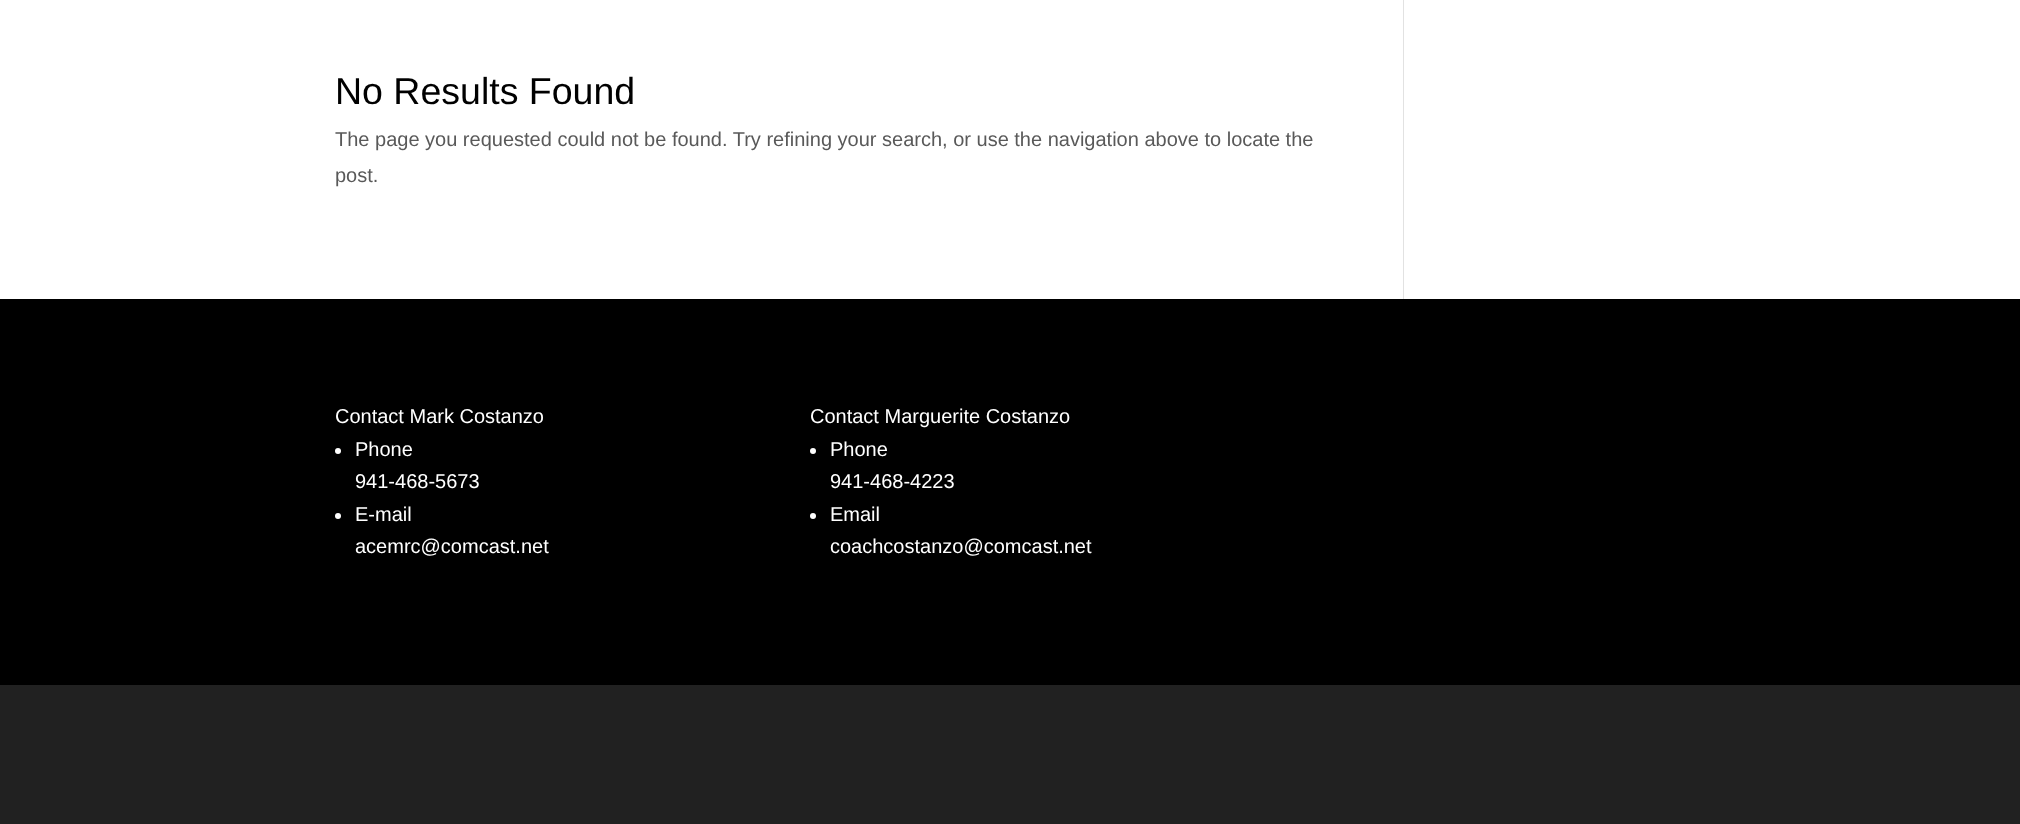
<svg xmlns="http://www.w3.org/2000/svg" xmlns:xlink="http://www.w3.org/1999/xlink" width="2020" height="824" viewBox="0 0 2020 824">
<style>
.cls-1{font:37.5px Liberation Sans;fill:#000000}
.cls-2{font:20px Liberation Sans;fill:#595959}
.cls-3{font:20px Liberation Sans;fill:#ffffff}
</style>
<rect width="100%" height="100%" fill="#212121"/>
<rect fill="#ffffff" x="0" y="0" width="2020" height="299"/>
<rect fill="#e2e2e2" x="1403" y="0" width="1" height="299"/>
<rect fill="#000000" x="0" y="299" width="2020" height="386"/>
<circle fill="#ffffff" cx="338" cy="451" r="3"/>
<circle fill="#ffffff" cx="338" cy="516" r="3"/>
<circle fill="#ffffff" cx="813" cy="451" r="3"/>
<circle fill="#ffffff" cx="813" cy="516" r="3"/>
<text class="cls-1" x="335" y="104">No Results Found</text>
<text class="cls-2"><tspan x="335" y="146">The page you requested could not be found. Try refining your search, or use the navigation above to locate the</tspan><tspan x="335" y="182">post.</tspan></text>
<text class="cls-3" x="335" y="423">Contact Mark Costanzo</text>
<text class="cls-3"><tspan x="355" y="456">Phone</tspan><tspan x="355" y="488">941-468-5673</tspan><tspan x="355" y="521">E-mail</tspan><tspan x="355" y="553">acemrc@comcast.net</tspan></text>
<text class="cls-3" x="810" y="423">Contact Marguerite Costanzo</text>
<text class="cls-3"><tspan x="830" y="456">Phone</tspan><tspan x="830" y="488">941-468-4223</tspan><tspan x="830" y="521">Email</tspan><tspan x="830" y="553">coachcostanzo@comcast.net</tspan></text>
</svg>
